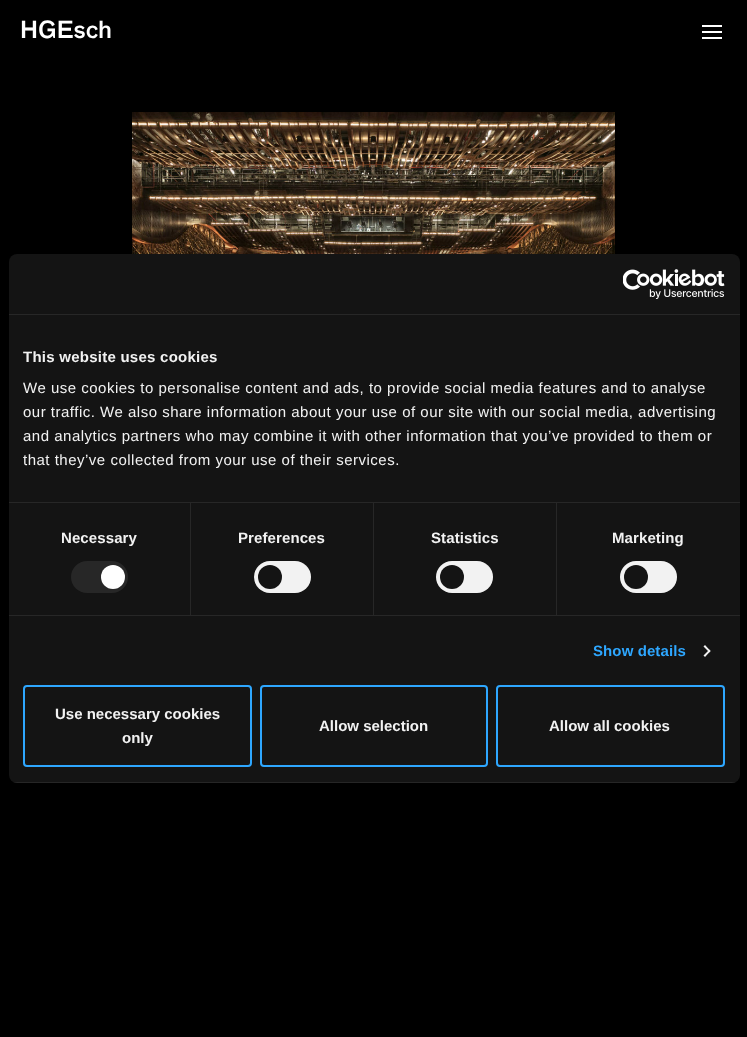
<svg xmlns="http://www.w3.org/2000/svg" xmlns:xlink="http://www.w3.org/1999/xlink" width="747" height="1037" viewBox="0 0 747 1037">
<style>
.cls-1{font:24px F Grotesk;fill:#ffffff}
.cls-2{font:bold 15px Liberation Sans;letter-spacing:0.25px;fill:#f2f2f2}
.cls-3{font:15px Liberation Sans;letter-spacing:0.5px;fill:#f2f2f2}
.cls-4{font:bold 15px Liberation Sans;letter-spacing:0.1px;fill:#f2f2f2}
.cls-5{font:bold 15px Liberation Sans;letter-spacing:0.1px;fill:#2ea7ff}
.cls-6{font:bold 15px Liberation Sans;fill:#f2f2f2}
</style>
<defs>
<clipPath id="clip1"><rect x="9" y="254" width="731" height="529" rx="8"/></clipPath>
</defs>
<rect width="100%" height="100%" fill="#000000"/>
<rect fill="#ffffff" x="702" y="37" width="20" height="2"/>
<rect fill="#ffffff" x="702" y="25" width="20" height="2"/>
<rect fill="#ffffff" x="702" y="31" width="20" height="2"/>
<image xlink:href="image0.png" x="132" y="112" width="483" height="142"/>
<rect fill="#000000" fill-opacity="0.3" filter="blur(34px)" x="9" y="286" width="731" height="529" rx="8"/>
<rect fill="#141414" x="9" y="254" width="731" height="529" rx="8"/>
<rect fill="#272727" x="9" y="314" width="731" height="1"/>
<image xlink:href="image1.png" x="623" y="269" width="102" height="30"/>
<rect fill="#272727" x="9" y="502" width="731" height="1"/>
<rect fill="#272727" x="9" y="615" width="731" height="1"/>
<rect fill="#272727" x="190" y="503" width="1" height="112"/>
<rect fill="#272727" x="71" y="561" width="57" height="32" rx="16"/>
<circle fill="#ffffff" cx="113" cy="577" r="12"/>
<rect fill="#272727" x="373" y="503" width="1" height="112"/>
<rect fill="#f2f2f2" x="254" y="561" width="57" height="32" rx="16"/>
<circle fill="#141414" cx="270" cy="577" r="12"/>
<rect fill="#272727" x="556" y="503" width="1" height="112"/>
<rect fill="#f2f2f2" x="436" y="561" width="57" height="32" rx="16"/>
<circle fill="#141414" cx="452" cy="577" r="12"/>
<rect fill="#f2f2f2" x="620" y="561" width="57" height="32" rx="16"/>
<circle fill="#141414" cx="636" cy="577" r="12"/>
<path fill="#f2f2f2" d="M705 645L710.5 651L709.5 652.5L703.5 646.5Z"/>
<path fill="#f2f2f2" d="M709.5 649.5L710.5 651L705 657L703.5 655.5Z"/>
<g clip-path="url(#clip1)">
<rect fill="#ffffff" fill-opacity="0.08" x="9" y="782" width="731" height="1"/>
</g>
<rect fill="none" stroke="#2ea7ff" stroke-width="2" x="24" y="686" width="227" height="80" rx="3"/>
<rect fill="none" stroke="#2ea7ff" stroke-width="2" x="261" y="686" width="226" height="80" rx="3"/>
<rect fill="none" stroke="#2ea7ff" stroke-width="2" x="497" y="686" width="227" height="80" rx="3"/>
<text class="cls-1" x="20" y="38">HGEsch</text>
<text class="cls-2" x="23" y="362">This website uses cookies</text>
<text class="cls-3"><tspan x="23" y="393">We use cookies to personalise content and ads, to provide social media features and to analyse</tspan><tspan x="23" y="417">our traffic. We also share information about your use of our site with our social media, advertising</tspan><tspan x="23" y="441">and analytics partners who may combine it with other information that you’ve provided to them or</tspan><tspan x="23" y="465">that they’ve collected from your use of their services.</tspan></text>
<text class="cls-4" x="61" y="543">Necessary</text>
<text class="cls-4" x="238" y="543">Preferences</text>
<text class="cls-4" x="431" y="543">Statistics</text>
<text class="cls-4" x="612" y="543">Marketing</text>
<text class="cls-5" x="593" y="656">Show details</text>
<text class="cls-6" x="55" y="719">Use necessary cookies</text>
<text class="cls-6" x="122" y="743">only</text>
<text class="cls-6" x="319" y="731">Allow selection</text>
<text class="cls-6" x="549" y="731">Allow all cookies</text>
</svg>
